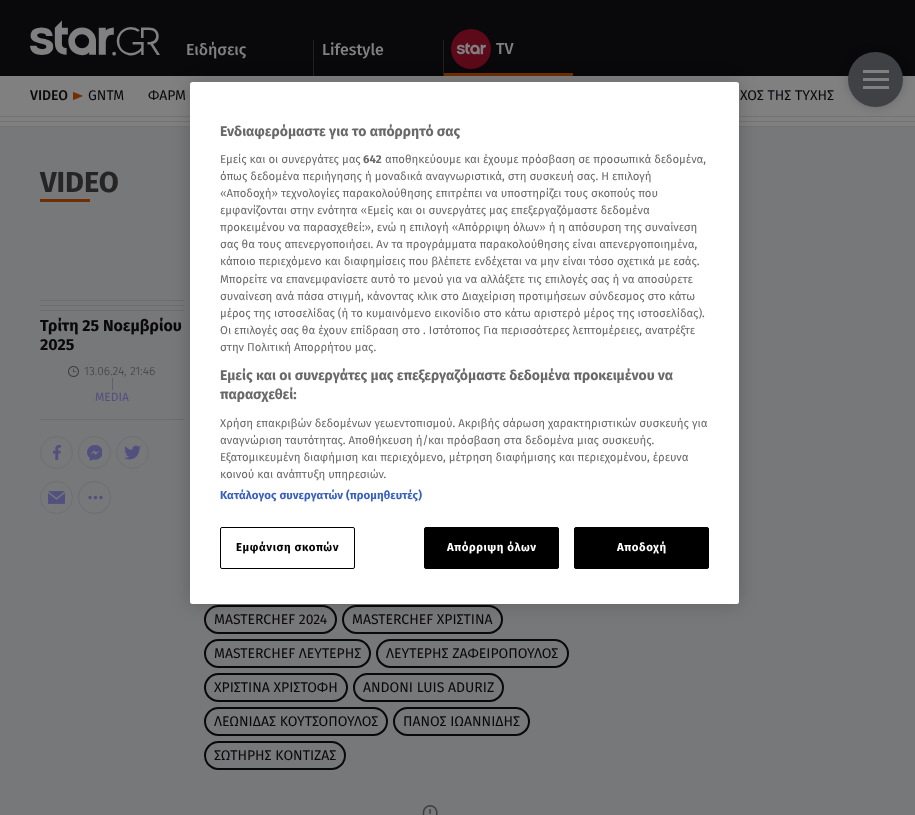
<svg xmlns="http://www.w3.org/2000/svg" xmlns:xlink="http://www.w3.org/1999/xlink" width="915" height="815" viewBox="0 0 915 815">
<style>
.cls-1{font:500 16px Fira Sans;fill:#808080}
.cls-2{font:500 14px Fira Sans;fill:#09080b}
.cls-3{font:14px Fira Sans;fill:#09080b}
.cls-4{font:bold 29px Fira Sans;fill:#252525}
.cls-5{font:bold 16px Fira Sans;fill:#09080b}
.cls-6{font:300 12px Fira Sans;fill:#3f4144}
.cls-7{font:12px Fira Sans;fill:#52507f}
.cls-8{font:bold 14px Fira Sans;fill:#696969}
.cls-9{font:11.4px Fira Sans;fill:#696969}
.cls-10{font:bold 11.4px Fira Sans;fill:#696969}
.cls-11{font:bold 11.4px Fira Sans;letter-spacing:0.1px;fill:#3860be}
.cls-12{font:bold 11.4px Fira Sans;letter-spacing:0.6px;fill:#000000}
.cls-13{font:bold 11.4px Fira Sans;letter-spacing:0.6px;fill:#ffffff}
</style>
<rect width="100%" height="100%" fill="#808080"/>
<rect fill="#09080b" x="0" y="0" width="915" height="76"/>
<image xlink:href="image0.png" x="30" y="20" width="130" height="36"/>
<rect fill="#212022" x="313" y="40" width="1" height="36"/>
<rect fill="#212022" x="443" y="40" width="1" height="36"/>
<image xlink:href="image1.png" x="451" y="29" width="40" height="40"/>
<rect fill="#702f00" x="444" y="73" width="129" height="3"/>
<rect fill="#737374" x="0" y="116" width="915" height="1"/>
<rect fill="#737374" x="0" y="121" width="915" height="1"/>
<rect fill="#000000" fill-opacity="0.19" filter="blur(5px)" x="848" y="52" width="55" height="55" rx="27.5"/>
<circle fill="#3f4144" cx="875.5" cy="79.5" r="27.5"/>
<rect fill="#808080" x="863" y="78" width="26" height="3"/>
<rect fill="#808080" x="863" y="70" width="26" height="3"/>
<rect fill="#808080" x="863" y="86" width="26" height="3"/>
<image xlink:href="image2.png" x="73" y="92" width="10" height="8"/>
<rect fill="#737374" x="0" y="126" width="915" height="1"/>
<rect fill="#77787a" x="0" y="127" width="915" height="688"/>
<rect fill="#702f00" x="40" y="199" width="50" height="3"/>
<rect fill="#6c6d6f" x="40" y="300" width="144" height="1"/>
<rect fill="#6c6d6f" x="40" y="305" width="144" height="1"/>
<rect fill="#6c6d6f" x="40" y="310" width="144" height="1"/>
<image xlink:href="image3.png" x="68" y="366" width="11" height="11"/>
<rect fill="#606060" x="112" y="378" width="1" height="12"/>
<rect fill="#6c6d6f" x="40" y="419" width="144" height="1"/>
<circle fill="none" stroke="#6d7072" cx="56.5" cy="452.5" r="16"/>
<image xlink:href="image4.png" x="53" y="445" width="8" height="15"/>
<circle fill="none" stroke="#6d7072" cx="94.5" cy="452.5" r="16"/>
<image xlink:href="image5.png" x="87" y="445" width="15" height="16"/>
<circle fill="none" stroke="#6d7072" cx="132.5" cy="452.5" r="16"/>
<image xlink:href="image6.png" x="124" y="445" width="17" height="15"/>
<circle fill="none" stroke="#6d7072" cx="56.5" cy="497.5" r="16"/>
<image xlink:href="image7.png" x="48" y="491" width="17" height="13"/>
<circle fill="none" stroke="#6d7072" cx="94.5" cy="497.5" r="16"/>
<circle fill="#77787a" stroke="#6d7072" cx="94.5" cy="497.5" r="16"/>
<image xlink:href="image8.png" x="88" y="495" width="15" height="5"/>
<rect fill="none" stroke="#09080b" stroke-width="2" x="205" y="606" width="131" height="27" rx="13.5"/>
<rect fill="none" stroke="#09080b" stroke-width="2" x="343" y="606" width="159" height="27" rx="13.5"/>
<rect fill="none" stroke="#09080b" stroke-width="2" x="205" y="640" width="165" height="27" rx="13.5"/>
<rect fill="none" stroke="#09080b" stroke-width="2" x="377" y="640" width="191" height="27" rx="13.5"/>
<rect fill="none" stroke="#09080b" stroke-width="2" x="205" y="674" width="142" height="27" rx="13.5"/>
<rect fill="none" stroke="#09080b" stroke-width="2" x="354" y="674" width="149" height="27" rx="13.5"/>
<rect fill="none" stroke="#09080b" stroke-width="2" x="205" y="708" width="182" height="27" rx="13.5"/>
<rect fill="none" stroke="#09080b" stroke-width="2" x="394" y="708" width="135" height="27" rx="13.5"/>
<rect fill="none" stroke="#09080b" stroke-width="2" x="205" y="742" width="140" height="27" rx="13.5"/>
<image xlink:href="image9.png" x="422" y="805" width="16" height="10"/>
<rect fill="#000000" fill-opacity="0.2" filter="blur(9px)" x="190" y="82" width="549" height="522" rx="2.5"/>
<rect fill="#ffffff" x="190" y="82" width="549" height="522" rx="2.5"/>
<rect fill="none" stroke="#000000" x="220.5" y="527.5" width="134" height="41" rx="1.5"/>
<rect fill="#000000" stroke="#000000" x="424.5" y="527.5" width="134" height="41" rx="1.5"/>
<rect fill="#000000" stroke="#000000" x="574.5" y="527.5" width="134" height="41" rx="1.5"/>
<text class="cls-1" x="186" y="55">Ειδήσεις</text>
<text class="cls-1" x="322" y="55">Lifestyle</text>
<text class="cls-1" x="496" y="54">TV</text>
<text class="cls-2" x="30" y="100">VIDEO</text>
<text class="cls-3" x="88" y="100">GNTM</text>
<text class="cls-3" x="148" y="100">ΦΑΡΜ</text>
<text class="cls-3" x="740" y="100">ΧΟΣ ΤΗΣ ΤΥΧΗΣ</text>
<text class="cls-4" x="40" y="192">VIDEO</text>
<text class="cls-5"><tspan x="40" y="331">Τρίτη 25 Νοεμβρίου</tspan><tspan x="40" y="350">2025</tspan></text>
<text class="cls-6" x="84" y="375">13.06.24, 21:46</text>
<text class="cls-7" x="95" y="401">MEDIA</text>
<text class="cls-3" x="214" y="624">MASTERCHEF 2024</text>
<text class="cls-3" x="352" y="624">MASTERCHEF ΧΡΙΣΤΙΝΑ</text>
<text class="cls-3" x="214" y="658">MASTERCHEF ΛΕΥΤΕΡΗΣ</text>
<text class="cls-3" x="386" y="658">ΛΕΥΤΕΡΗΣ ΖΑΦΕΙΡΟΠΟΥΛΟΣ</text>
<text class="cls-3" x="214" y="692">ΧΡΙΣΤΙΝΑ ΧΡΙΣΤΟΦΗ</text>
<text class="cls-3" x="363" y="692">ANDONI LUIS ADURIZ</text>
<text class="cls-3" x="214" y="726">ΛΕΩΝΙΔΑΣ ΚΟΥΤΣΟΠΟΥΛΟΣ</text>
<text class="cls-3" x="403" y="726">ΠΑΝΟΣ ΙΩΑΝΝΙΔΗΣ</text>
<text class="cls-3" x="214" y="760">ΣΩΤΗΡΗΣ ΚΟΝΤΙΖΑΣ</text>
<text class="cls-8" x="220" y="136">Ενδιαφερόμαστε για το απόρρητό σας</text>
<text class="cls-9" x="220" y="163">Εμείς και οι συνεργάτες μας</text>
<text class="cls-10" x="363" y="163">642</text>
<text class="cls-9" x="385" y="163">αποθηκεύουμε και έχουμε πρόσβαση σε προσωπικά δεδομένα,</text>
<text class="cls-9"><tspan x="220" y="180">όπως δεδομένα περιήγησης ή μοναδικά αναγνωριστικά, στη συσκευή σας. Η επιλογή</tspan><tspan x="220" y="197">«Αποδοχή» τεχνολογίες παρακολούθησης επιτρέπει να υποστηρίζει τους σκοπούς που</tspan><tspan x="220" y="214">εμφανίζονται στην ενότητα «Εμείς και οι συνεργάτες μας επεξεργαζόμαστε δεδομένα</tspan><tspan x="220" y="231">προκειμένου να παρασχεθεί:», ενώ η επιλογή «Απόρριψη όλων» ή η απόσυρση της συναίνεση</tspan><tspan x="220" y="248">σας θα τους απενεργοποιήσει. Αν τα προγράμματα παρακολούθησης είναι απενεργοποιημένα,</tspan><tspan x="220" y="265">κάποιο περιεχόμενο και διαφημίσεις που βλέπετε ενδέχεται να μην είναι τόσο σχετικά με εσάς.</tspan><tspan x="220" y="283">Μπορείτε να επανεμφανίσετε αυτό το μενού για να αλλάξετε τις επιλογές σας ή να αποσύρετε</tspan><tspan x="220" y="300">συναίνεση ανά πάσα στιγμή, κάνοντας κλικ στο Διαχείριση προτιμήσεων σύνδεσμος στο κάτω</tspan><tspan x="220" y="317">μέρος της ιστοσελίδας (ή το κυμαινόμενο εικονίδιο στο κάτω αριστερό μέρος της ιστοσελίδας).</tspan><tspan x="220" y="334">Οι επιλογές σας θα έχουν επίδραση στο . Ιστότοπος Για περισσότερες λεπτομέρειες, ανατρέξτε</tspan><tspan x="220" y="351">στην Πολιτική Απορρήτου μας.</tspan></text>
<text class="cls-8"><tspan x="220" y="380">Εμείς και οι συνεργάτες μας επεξεργαζόμαστε δεδομένα προκειμένου να</tspan><tspan x="220" y="399">παρασχεθεί:</tspan></text>
<text class="cls-9"><tspan x="220" y="427">Χρήση επακριβών δεδομένων γεωεντοπισμού. Ακριβής σάρωση χαρακτηριστικών συσκευής για</tspan><tspan x="220" y="444">αναγνώριση ταυτότητας. Αποθήκευση ή/και πρόσβαση στα δεδομένα μιας συσκευής.</tspan><tspan x="220" y="461">Εξατομικευμένη διαφήμιση και περιεχόμενο, μέτρηση διαφήμισης και περιεχομένου, έρευνα</tspan><tspan x="220" y="478">κοινού και ανάπτυξη υπηρεσιών.</tspan></text>
<text class="cls-11" x="220" y="499">Κατάλογος συνεργατών (προμηθευτές)</text>
<text class="cls-12" x="236" y="551">Εμφάνιση σκοπών</text>
<text class="cls-13" x="447" y="551">Απόρριψη όλων</text>
<text class="cls-13" x="617" y="551">Αποδοχή</text>
</svg>
